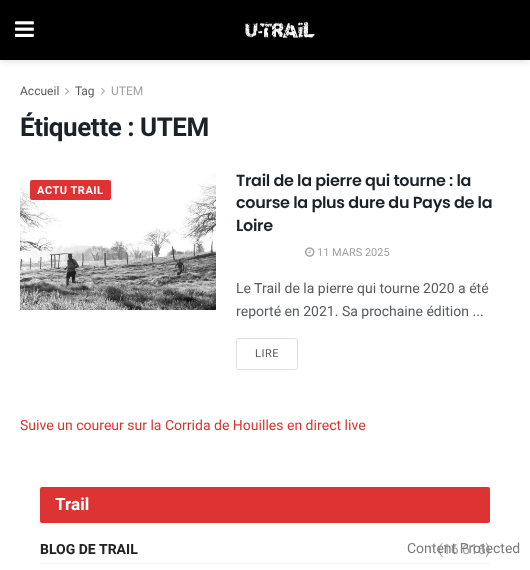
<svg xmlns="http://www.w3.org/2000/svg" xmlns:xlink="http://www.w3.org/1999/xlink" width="530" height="570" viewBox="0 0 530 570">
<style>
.cls-1{font:12px Heebo;fill:#595c5f}
.cls-2{font:12px Heebo;fill:#a0a0a0}
.cls-3{font:bold 26px Heebo;letter-spacing:-0.5px;fill:#1b2228}
.cls-4{font:bold 11px Heebo;letter-spacing:0.5px;fill:#ffffff}
.cls-5{font:600 16px Poppins;letter-spacing:-0.3px;fill:#1b2228}
.cls-6{font:11px Heebo;fill:#a0a0a0}
.cls-7{font:14px Heebo;fill:#595c5f}
.cls-8{font:11px Heebo;letter-spacing:0.5px;fill:#595c5f}
.cls-9{font:14px Heebo;fill:#dd3333}
.cls-10{font:bold 17px Heebo;fill:#ffffff}
.cls-11{font:bold 14px Heebo;fill:#212121}
.cls-12{font:14px Heebo;fill:#a0a0a0}
.cls-13{font:14px Heebo;fill:#7a7a7a}
</style>
<rect width="100%" height="100%" fill="#ffffff"/>
<rect fill="#000000" fill-opacity="0.1" filter="blur(3px)" x="0" y="2" width="530" height="60"/>
<rect fill="#000000" x="0" y="0" width="530" height="60"/>
<image xlink:href="image0.png" x="15" y="21" width="19" height="16"/>
<image xlink:href="image1.png" x="245" y="21" width="70" height="17"/>
<image xlink:href="image2.png" x="65" y="87" width="4" height="8"/>
<image xlink:href="image2.png" x="101" y="87" width="4" height="8"/>
<image xlink:href="image3.png" x="20" y="170" width="196" height="140"/>
<rect fill="#dd3333" x="30" y="180" width="81" height="20" rx="2"/>
<image xlink:href="image4.png" x="305" y="247" width="10" height="10"/>
<rect fill="none" stroke="#e0e0e0" x="236.5" y="338.5" width="61" height="31" rx="2.5"/>
<rect fill="#dd3333" x="40" y="487" width="450" height="36" rx="2"/>
<path fill="none" stroke="#eeeeee" stroke-dasharray="1 1" d="M40 563.5H490"/>
<text class="cls-1" x="20" y="95">Accueil</text>
<text class="cls-1" x="75" y="95">Tag</text>
<text class="cls-2" x="111" y="95">UTEM</text>
<text class="cls-3" x="20" y="136">Étiquette : UTEM</text>
<text class="cls-4" x="37" y="194">ACTU TRAIL</text>
<text class="cls-5"><tspan x="236" y="186">Trail de la pierre qui tourne : la</tspan><tspan x="236" y="208">course la plus dure du Pays de la</tspan><tspan x="236" y="231">Loire</tspan></text>
<text class="cls-6" x="317" y="256">11 MARS 2025</text>
<text class="cls-7"><tspan x="236" y="293">Le Trail de la pierre qui tourne 2020 a été</tspan><tspan x="236" y="316">reporté en 2021. Sa prochaine édition ...</tspan></text>
<text class="cls-8" x="255" y="357">LIRE</text>
<text class="cls-9" x="20" y="430">Suive un coureur sur la Corrida de Houilles en direct live</text>
<text class="cls-10" x="55" y="510">Trail</text>
<text class="cls-11" x="40" y="554">BLOG DE TRAIL</text>
<text class="cls-12" x="438" y="554">(16 616)</text>
<text class="cls-13" x="407" y="553">Content Protected</text>
</svg>
